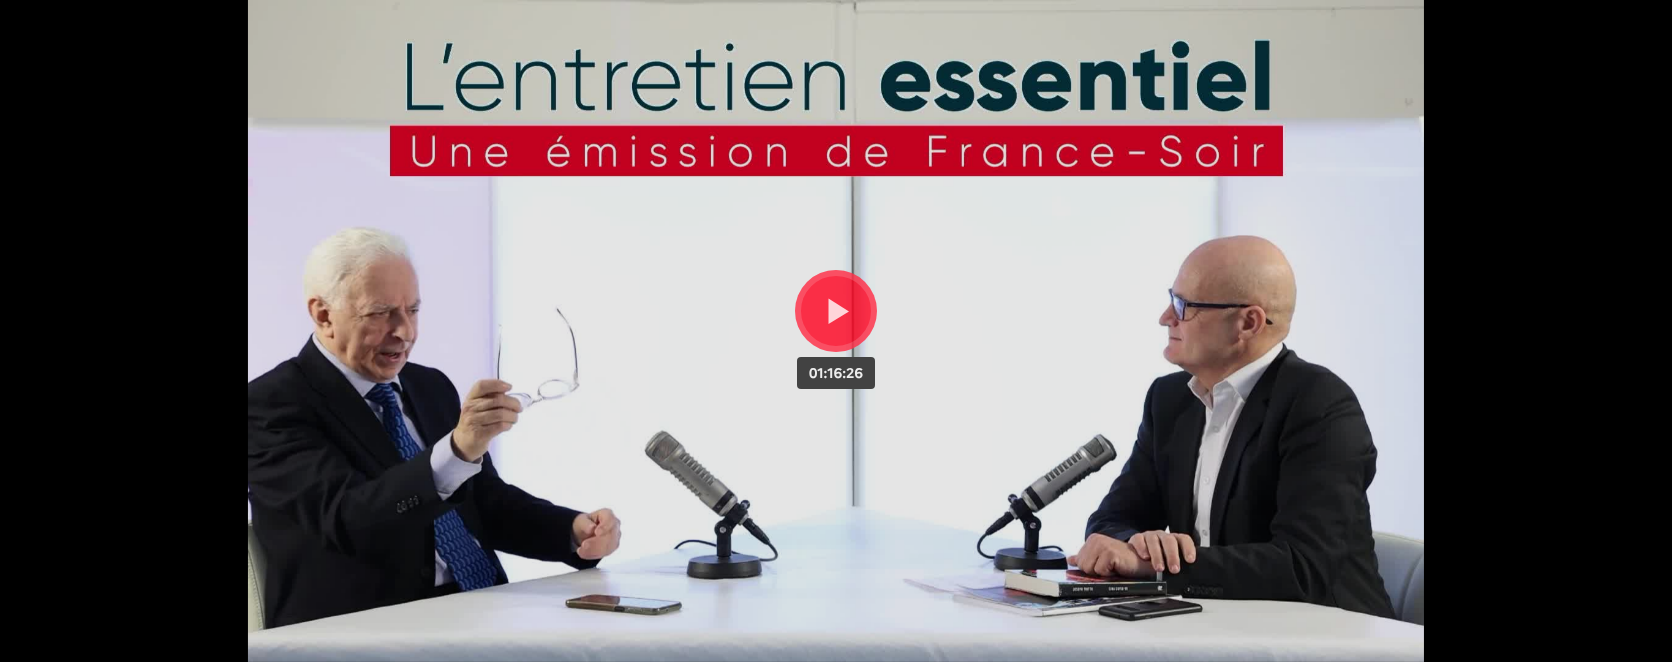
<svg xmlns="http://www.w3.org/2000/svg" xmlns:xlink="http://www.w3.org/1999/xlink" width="1672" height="662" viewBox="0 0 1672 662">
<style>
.cls-1{font:bold 14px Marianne;fill:#eeeeee}
</style>
<rect width="100%" height="100%" fill="#000000"/>
<image xlink:href="image0.png" x="247" y="0" width="1177" height="662"/>
<circle fill="#ff001e" fill-opacity="0.8" cx="836" cy="311" r="41"/>
<circle fill="none" stroke="#ffffff" stroke-opacity="0.16" stroke-width="6" cx="836" cy="311" r="38"/>
<path fill="#ffffff" fill-opacity="0.8" d="M828.5 298.5V324L849 311.5Z"/>
<rect fill="#424242" x="797" y="357" width="78" height="32" rx="4"/>
<text class="cls-1" x="809" y="378">01:16:26</text>
</svg>
